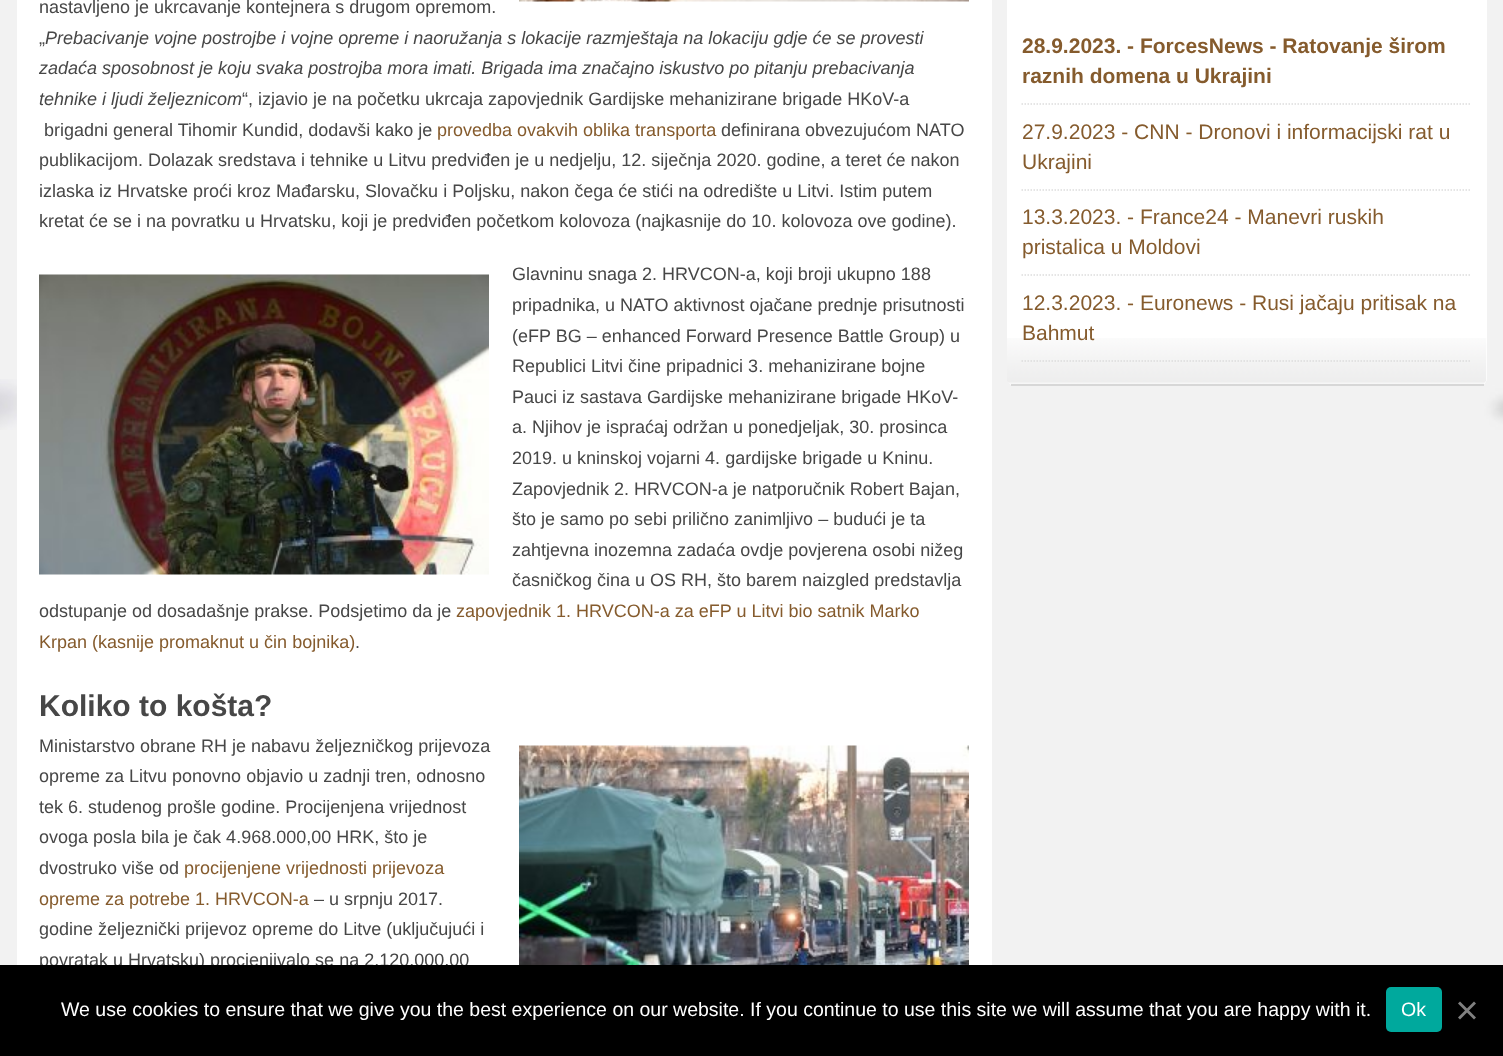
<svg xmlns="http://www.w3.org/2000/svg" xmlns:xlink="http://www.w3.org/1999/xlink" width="1503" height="1056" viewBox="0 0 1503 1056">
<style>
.cls-1{font:18px Liberation Sans;fill:#474747}
.cls-2{font:italic 18px Liberation Sans;fill:#474747}
.cls-3{font:18px Liberation Sans;fill:#855b2d}
.cls-4{font:bold 30px Liberation Sans;fill:#474747}
.cls-5{font:bold 21px Liberation Sans;fill:#855b2d}
.cls-6{font:21px Liberation Sans;fill:#855b2d}
.cls-7{font:19.5px Liberation Sans;fill:#ffffff}
</style>
<rect width="100%" height="100%" fill="#f2f2f2"/>
<image xlink:href="image0.png" x="0" y="379" width="1503" height="51"/>
<rect fill="#ffffff" x="17" y="0" width="975" height="965"/>
<image xlink:href="image1.png" x="519" y="0" width="450" height="2"/>
<image xlink:href="image2.png" x="39" y="274" width="450" height="301"/>
<image xlink:href="image3.png" x="519" y="745" width="450" height="220"/>
<rect fill="#ffffff" x="1007" y="-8" width="480" height="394" rx="8"/>
<image xlink:href="image4.png" x="1007" y="338" width="480" height="46"/>
<rect fill="#d7d7d7" x="1011" y="384" width="473" height="2"/>
<path fill="none" stroke="#dddddd" stroke-width="1.5" stroke-dasharray="1.5 1.5" d="M1021.5 104H1471.5"/>
<path fill="none" stroke="#dddddd" stroke-width="1.5" stroke-dasharray="1.5 1.5" d="M1021.5 190H1471.5"/>
<path fill="none" stroke="#dddddd" stroke-width="1.5" stroke-dasharray="1.5 1.5" d="M1021.5 275H1471.5"/>
<path fill="none" stroke="#dddddd" stroke-width="1.5" stroke-dasharray="1.5 1.5" d="M1021.5 361H1471.5"/>
<text class="cls-1"><tspan x="39" y="13">nastavljeno je ukrcavanje kontejnera s drugom opremom.</tspan><tspan x="39" y="44">„</tspan></text>
<text class="cls-2" x="45" y="44">Prebacivanje vojne postrojbe i vojne opreme i naoružanja s lokacije razmještaja na lokaciju gdje će se provesti</text>
<text class="cls-2"><tspan x="39" y="74">zadaća sposobnost je koju svaka postrojba mora imati. Brigada ima značajno iskustvo po pitanju prebacivanja</tspan><tspan x="39" y="105">tehnike i ljudi željeznicom</tspan></text>
<text class="cls-1" x="242" y="105">“, izjavio je na početku ukrcaja zapovjednik Gardijske mehanizirane brigade HKoV-a</text>
<text class="cls-1" x="44" y="136">brigadni general Tihomir Kundid, dodavši kako je</text>
<text class="cls-3" x="437" y="136">provedba ovakvih oblika transporta</text>
<text class="cls-1" x="721" y="136">definirana obvezujućom NATO</text>
<text class="cls-1"><tspan x="39" y="166">publikacijom. Dolazak sredstava i tehnike u Litvu predviđen je u nedjelju, 12. siječnja 2020. godine, a teret će nakon</tspan><tspan x="39" y="197">izlaska iz Hrvatske proći kroz Mađarsku, Slovačku i Poljsku, nakon čega će stići na odredište u Litvi. Istim putem</tspan><tspan x="39" y="227">kretat će se i na povratku u Hrvatsku, koji je predviđen početkom kolovoza (najkasnije do 10. kolovoza ove godine).</tspan></text>
<text class="cls-1"><tspan x="512" y="280">Glavninu snaga 2. HRVCON-a, koji broji ukupno 188</tspan><tspan x="512" y="311">pripadnika, u NATO aktivnost ojačane prednje prisutnosti</tspan><tspan x="512" y="342">(eFP BG – enhanced Forward Presence Battle Group) u</tspan><tspan x="512" y="372">Republici Litvi čine pripadnici 3. mehanizirane bojne</tspan><tspan x="512" y="403">Pauci iz sastava Gardijske mehanizirane brigade HKoV-</tspan><tspan x="512" y="433">a. Njihov je ispraćaj održan u ponedjeljak, 30. prosinca</tspan><tspan x="512" y="464">2019. u kninskoj vojarni 4. gardijske brigade u Kninu.</tspan><tspan x="512" y="495">Zapovjednik 2. HRVCON-a je natporučnik Robert Bajan,</tspan><tspan x="512" y="525">što je samo po sebi prilično zanimljivo – budući je ta</tspan><tspan x="512" y="556">zahtjevna inozemna zadaća ovdje povjerena osobi nižeg</tspan><tspan x="512" y="586">časničkog čina u OS RH, što barem naizgled predstavlja</tspan></text>
<text class="cls-1" x="39" y="617">odstupanje od dosadašnje prakse. Podsjetimo da je</text>
<text class="cls-3" x="456" y="617">zapovjednik 1. HRVCON-a za eFP u Litvi bio satnik Marko</text>
<text class="cls-3" x="39" y="648">Krpan (kasnije promaknut u čin bojnika)</text>
<text class="cls-1" x="355" y="648">.</text>
<text class="cls-4" x="39" y="716">Koliko to košta?</text>
<text class="cls-1"><tspan x="39" y="752">Ministarstvo obrane RH je nabavu željezničkog prijevoza</tspan><tspan x="39" y="782">opreme za Litvu ponovno objavio u zadnji tren, odnosno</tspan><tspan x="39" y="813">tek 6. studenog prošle godine. Procijenjena vrijednost</tspan><tspan x="39" y="843">ovoga posla bila je čak 4.968.000,00 HRK, što je</tspan><tspan x="39" y="874">dvostruko više od</tspan></text>
<text class="cls-3" x="184" y="874">procijenjene vrijednosti prijevoza</text>
<text class="cls-3" x="39" y="905">opreme za potrebe 1. HRVCON-a</text>
<text class="cls-1" x="314" y="905">– u srpnju 2017.</text>
<text class="cls-1"><tspan x="39" y="935">godine željeznički prijevoz opreme do Litve (uključujući i</tspan><tspan x="39" y="966">povratak u Hrvatsku) procjenjivalo se na 2.120.000,00</tspan></text>
<text class="cls-5"><tspan x="1022" y="53">28.9.2023. - ForcesNews - Ratovanje širom</tspan><tspan x="1022" y="83">raznih domena u Ukrajini</tspan></text>
<text class="cls-6"><tspan x="1022" y="139">27.9.2023 - CNN - Dronovi i informacijski rat u</tspan><tspan x="1022" y="169">Ukrajini</tspan></text>
<text class="cls-6"><tspan x="1022" y="224">13.3.2023. - France24 - Manevri ruskih</tspan><tspan x="1022" y="254">pristalica u Moldovi</tspan></text>
<text class="cls-6"><tspan x="1022" y="310">12.3.2023. - Euronews - Rusi jačaju pritisak na</tspan><tspan x="1022" y="340">Bahmut</tspan></text>
<rect fill="#000000" x="0" y="965" width="1503" height="91"/>
<text class="cls-7" x="61" y="1016">We use cookies to ensure that we give you the best experience on our website. If you continue to use this site we will assume that you are happy with it.</text>
<rect fill="#00a99d" x="1386" y="987" width="56" height="45" rx="5"/>
<text class="cls-7" x="1401" y="1016">Ok</text>
<path fill="#808080" d="M1474 1001.5L1476 1003.5L1460 1019.5L1458 1017.5Z"/>
<path fill="#808080" d="M1458 1003.5L1460 1001.5L1476 1017.5L1474 1019.5Z"/>
</svg>
